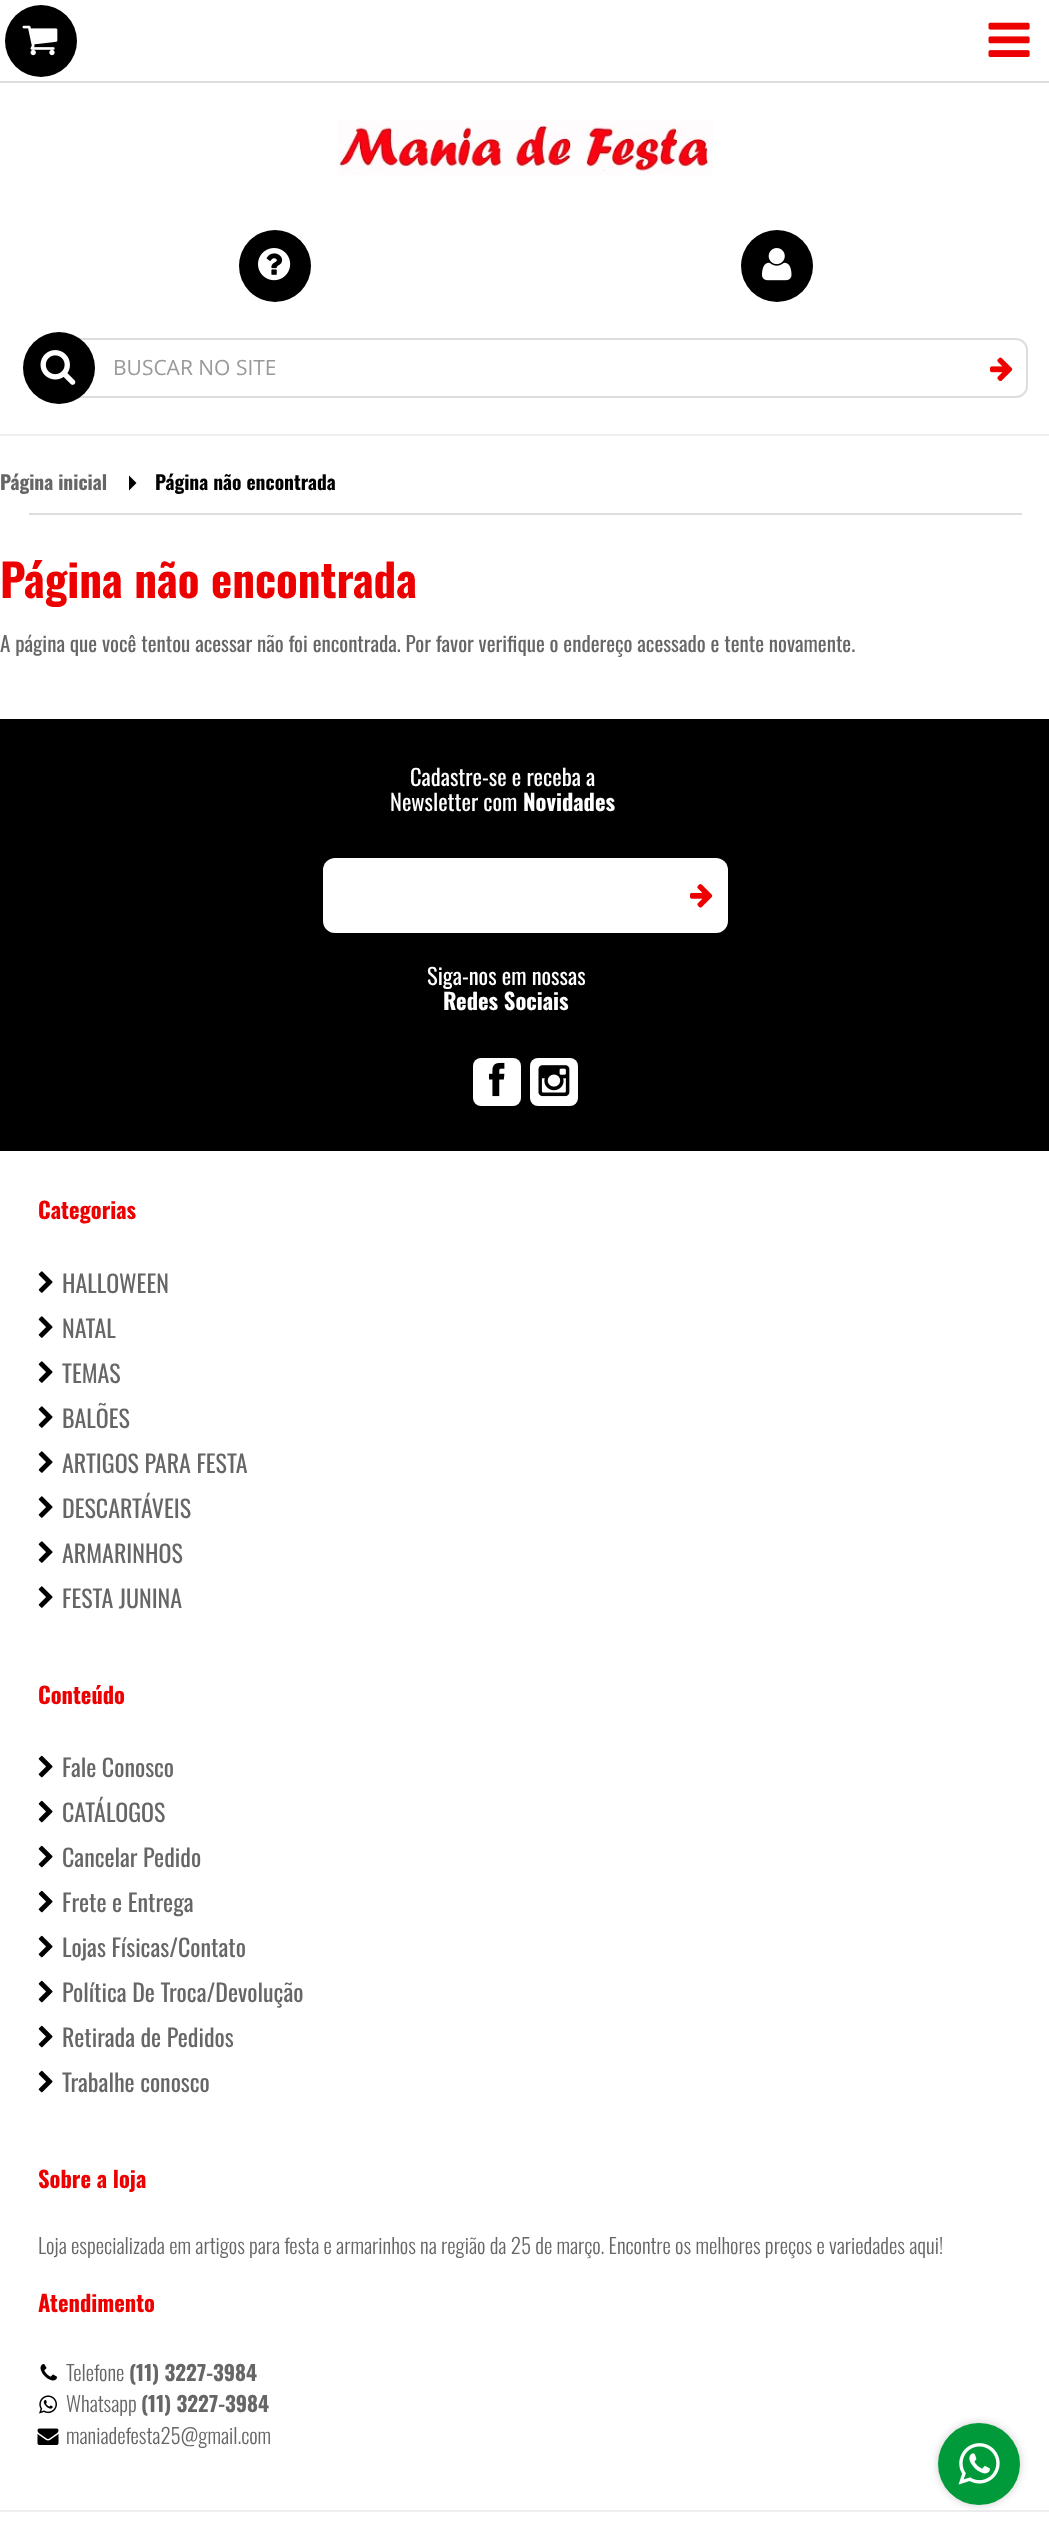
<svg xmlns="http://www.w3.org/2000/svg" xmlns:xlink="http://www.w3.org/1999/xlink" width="1049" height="2534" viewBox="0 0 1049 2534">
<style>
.cls-1{font:21px Open Sans;fill:#999999}
.cls-2{font:bold 19.5px Oswald;fill:#666666}
.cls-3{font:bold 19.5px Oswald;fill:#000000}
.cls-4{font:bold 45px Oswald;fill:#ed0000}
.cls-5{font:21px Oswald;fill:#666666}
.cls-6{font:22.5px Oswald;fill:#ffffff}
.cls-7{font:bold 22.5px Oswald;fill:#ffffff}
.cls-8{font:bold 22.5px Oswald;fill:#ed0000}
.cls-9{font:24px Oswald;fill:#666666}
.cls-10{font:300 21px Oswald;fill:#666666}
.cls-11{font:bold 21px Oswald;fill:#666666}
</style>
<rect width="100%" height="100%" fill="#ffffff"/>
<rect fill="#dddddd" x="0" y="81" width="1049" height="2"/>
<rect fill="#eeeeee" x="0" y="434" width="1049" height="2"/>
<image xlink:href="image0.png" x="988" y="22" width="42" height="35"/>
<image xlink:href="image1.png" x="337" y="120" width="376" height="55"/>
<circle fill="#000000" cx="41" cy="41" r="36"/>
<image xlink:href="image2.png" x="22" y="25" width="36" height="31"/>
<circle fill="#000000" cx="275" cy="266" r="36"/>
<image xlink:href="image3.png" x="258" y="248" width="33" height="33"/>
<circle fill="#000000" cx="777" cy="266" r="36"/>
<image xlink:href="image4.png" x="762" y="248" width="30" height="33"/>
<rect fill="none" stroke="#dddddd" stroke-width="2" x="54" y="339" width="973" height="58" rx="11"/>
<circle fill="#000000" cx="59" cy="368" r="36"/>
<image xlink:href="image5.png" x="40" y="350" width="36" height="35"/>
<image xlink:href="image6.png" x="990" y="357" width="23" height="24"/>
<path fill="#000000" d="M129 490.5V475.5L136.5 483Z"/>
<rect fill="#dedede" x="29" y="513" width="993" height="2"/>
<rect fill="#000000" x="0" y="719" width="1049" height="432"/>
<rect fill="#ffffff" x="323" y="858" width="405" height="75" rx="12"/>
<image xlink:href="image7.png" x="690" y="884" width="23" height="24"/>
<rect fill="#ffffff" x="473" y="1058" width="48" height="48" rx="8"/>
<image xlink:href="image8.png" x="489" y="1062" width="16" height="35"/>
<rect fill="#ffffff" x="530" y="1058" width="48" height="48" rx="8"/>
<image xlink:href="image9.png" x="538" y="1065" width="32" height="32"/>
<rect fill="#eeeeee" x="0" y="2510" width="1049" height="2"/>
<image xlink:href="image10.png" x="38" y="1271" width="15" height="22"/>
<image xlink:href="image10.png" x="38" y="1316" width="15" height="22"/>
<image xlink:href="image10.png" x="38" y="1361" width="15" height="22"/>
<image xlink:href="image10.png" x="38" y="1406" width="15" height="22"/>
<image xlink:href="image10.png" x="38" y="1451" width="15" height="22"/>
<image xlink:href="image10.png" x="38" y="1496" width="15" height="22"/>
<image xlink:href="image10.png" x="38" y="1541" width="15" height="22"/>
<image xlink:href="image10.png" x="38" y="1586" width="15" height="22"/>
<image xlink:href="image11.png" x="38" y="1755" width="15" height="23"/>
<image xlink:href="image11.png" x="38" y="1800" width="15" height="23"/>
<image xlink:href="image11.png" x="38" y="1845" width="15" height="23"/>
<image xlink:href="image11.png" x="38" y="1890" width="15" height="23"/>
<image xlink:href="image11.png" x="38" y="1935" width="15" height="23"/>
<image xlink:href="image11.png" x="38" y="1980" width="15" height="23"/>
<image xlink:href="image11.png" x="38" y="2025" width="15" height="23"/>
<image xlink:href="image11.png" x="38" y="2070" width="15" height="23"/>
<image xlink:href="image12.png" x="40" y="2364" width="17" height="17"/>
<image xlink:href="image13.png" x="39" y="2395" width="18" height="19"/>
<image xlink:href="image14.png" x="37" y="2428" width="22" height="17"/>
<rect fill="#000000" fill-opacity="0.2" filter="blur(4px)" x="938" y="2423" width="82" height="82" rx="41"/>
<circle fill="#009a3a" cx="979" cy="2464" r="41"/>
<image xlink:href="image15.png" x="958" y="2443" width="42" height="42"/>
<text class="cls-1" x="113" y="375">BUSCAR NO SITE</text>
<text class="cls-2" x="0" y="490">Página inicial</text>
<text class="cls-3" x="155" y="490">Página não encontrada</text>
<text class="cls-4" x="0" y="598">Página não encontrada</text>
<text class="cls-5" x="0" y="652">A página que você tentou acessar não foi encontrada. Por favor verifique o endereço acessado e tente novamente.</text>
<text class="cls-6" x="410" y="786">Cadastre-se e receba a</text>
<text class="cls-6" x="390" y="811">Newsletter com</text>
<text class="cls-7" x="523" y="811">Novidades</text>
<text class="cls-6" x="427" y="985">Siga-nos em nossas</text>
<text class="cls-7" x="443" y="1010">Redes Sociais</text>
<text class="cls-8" x="38" y="1219">Categorias</text>
<text class="cls-9"><tspan x="62" y="1293">HALLOWEEN</tspan><tspan x="62" y="1338">NATAL</tspan><tspan x="62" y="1383">TEMAS</tspan><tspan x="62" y="1428">BALÕES</tspan><tspan x="62" y="1473">ARTIGOS PARA FESTA</tspan><tspan x="62" y="1518">DESCARTÁVEIS</tspan><tspan x="62" y="1563">ARMARINHOS</tspan><tspan x="62" y="1608">FESTA JUNINA</tspan></text>
<text class="cls-8" x="38" y="1704">Conteúdo</text>
<text class="cls-9"><tspan x="62" y="1777">Fale Conosco</tspan><tspan x="62" y="1822">CATÁLOGOS</tspan><tspan x="62" y="1867">Cancelar Pedido</tspan><tspan x="62" y="1912">Frete e Entrega</tspan><tspan x="62" y="1957">Lojas Físicas/Contato</tspan><tspan x="62" y="2002">Política De Troca/Devolução</tspan><tspan x="62" y="2047">Retirada de Pedidos</tspan><tspan x="62" y="2092">Trabalhe conosco</tspan></text>
<text class="cls-8" x="38" y="2188">Sobre a loja</text>
<text class="cls-10" x="38" y="2254">Loja especializada em artigos para festa e armarinhos na região da 25 de março. Encontre os melhores preços e variedades aqui!</text>
<text class="cls-8" x="38" y="2312">Atendimento</text>
<text class="cls-10" x="66" y="2381">Telefone</text>
<text class="cls-11" x="129" y="2381">(11) 3227-3984</text>
<text class="cls-10" x="66" y="2412">Whatsapp</text>
<text class="cls-11" x="141" y="2412">(11) 3227-3984</text>
<text class="cls-10" x="66" y="2444">maniadefesta25@gmail.com</text>
</svg>
